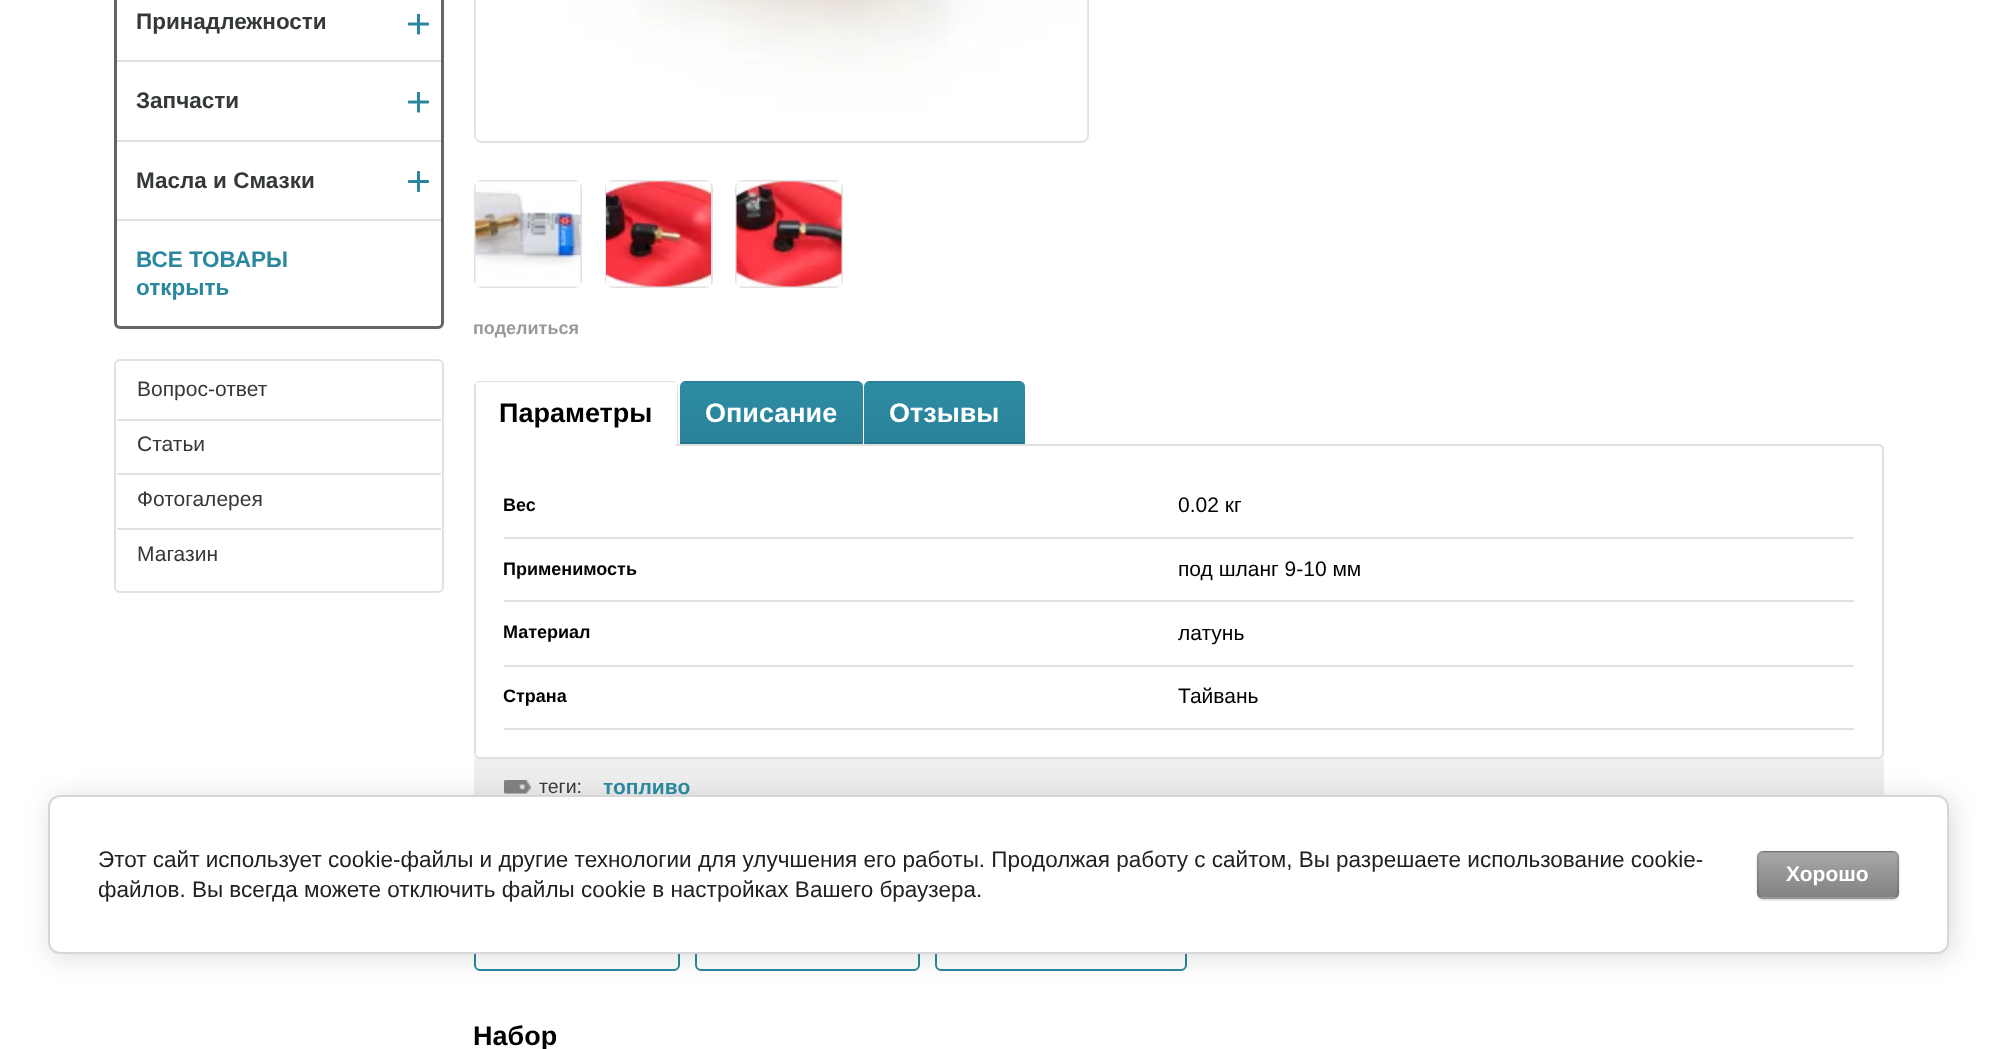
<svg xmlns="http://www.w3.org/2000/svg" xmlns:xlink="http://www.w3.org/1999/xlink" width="1996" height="1049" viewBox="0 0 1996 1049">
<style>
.cls-1{font:bold 22.5px Liberation Sans;fill:#34383a}
.cls-2{font:bold 22.5px Liberation Sans;fill:#2b879e}
.cls-3{font:21px Liberation Sans;fill:#34383a}
.cls-4{font:bold 18px Liberation Sans;fill:#999999}
.cls-5{font:bold 27px Liberation Sans;fill:#000000}
.cls-6{font:bold 27px Liberation Sans;fill:#ffffff}
.cls-7{font:bold 18px Liberation Sans;fill:#000000}
.cls-8{font:21px Liberation Sans;fill:#000000}
.cls-9{font:19.5px Liberation Sans;fill:#34383a}
.cls-10{font:bold 21px Liberation Sans;fill:#2b879e}
.cls-11{font:22.5px Liberation Sans;fill:#212121}
.cls-12{font:bold 21px Liberation Sans;fill:#ffffff}
</style>
<defs>
<clipPath id="clip1"><path d="M686 381H857C860.5 381 863 383.5 863 387V444H680V387C680 383.5 682.5 381 686 381Z"/></clipPath>
<linearGradient id="g1" gradientUnits="userSpaceOnUse" x1="771" y1="383" x2="771" y2="321"><stop offset="0" stop-color="#298199"/><stop offset="1" stop-color="#2d8da3"/></linearGradient>
<linearGradient id="g2" gradientUnits="userSpaceOnUse" x1="771" y1="444" x2="771" y2="383"><stop offset="0" stop-color="#298199"/><stop offset="1" stop-color="#2d8da3"/></linearGradient>
<clipPath id="clip2"><path d="M870 381H1019C1022.5 381 1025 383.5 1025 387V444H864V387C864 383.5 866.5 381 870 381Z"/></clipPath>
<linearGradient id="g3" gradientUnits="userSpaceOnUse" x1="944" y1="383" x2="944" y2="321"><stop offset="0" stop-color="#298199"/><stop offset="1" stop-color="#2d8da3"/></linearGradient>
<linearGradient id="g4" gradientUnits="userSpaceOnUse" x1="944" y1="444" x2="944" y2="383"><stop offset="0" stop-color="#298199"/><stop offset="1" stop-color="#2d8da3"/></linearGradient>
<clipPath id="clip3"><rect x="1757" y="851" width="142" height="48" rx="6"/></clipPath>
<linearGradient id="g5" gradientUnits="userSpaceOnUse" x1="1828" y1="807" x2="1828" y2="852"><stop offset="0" stop-color="#a8a8a8"/><stop offset="1" stop-color="#828282"/></linearGradient>
<linearGradient id="g6" gradientUnits="userSpaceOnUse" x1="1828" y1="852" x2="1828" y2="897"><stop offset="0" stop-color="#a8a8a8"/><stop offset="1" stop-color="#828282"/></linearGradient>
<linearGradient id="g7" gradientUnits="userSpaceOnUse" x1="1828" y1="897" x2="1828" y2="942"><stop offset="0" stop-color="#a8a8a8"/><stop offset="1" stop-color="#828282"/></linearGradient>
</defs>
<rect width="100%" height="100%" fill="#ffffff"/>
<rect fill="none" stroke="#616668" stroke-width="3" x="115.5" y="-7.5" width="327" height="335" rx="4.5"/>
<image xlink:href="image0.png" x="408" y="14" width="21" height="21"/>
<rect fill="#e1e1e1" x="117" y="60" width="324" height="2"/>
<image xlink:href="image0.png" x="408" y="92" width="21" height="21"/>
<rect fill="#e1e1e1" x="117" y="140" width="324" height="2"/>
<image xlink:href="image1.png" x="408" y="171" width="21" height="21"/>
<rect fill="#e1e1e1" x="117" y="219" width="324" height="2"/>
<rect fill="none" stroke="#e1e1e1" stroke-width="2" x="115" y="360" width="328" height="232" rx="5"/>
<rect fill="#e1e1e1" x="117" y="419" width="324" height="2"/>
<rect fill="#e1e1e1" x="117" y="473" width="324" height="2"/>
<rect fill="#e1e1e1" x="117" y="528" width="324" height="2"/>
<rect fill="none" stroke="#e1e1e1" stroke-width="2" x="475" y="-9" width="613" height="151" rx="7"/>
<image xlink:href="image2.png" x="475" y="0" width="613" height="141"/>
<rect fill="none" stroke="#e1e1e1" stroke-width="2" x="475" y="181" width="106" height="106" rx="7"/>
<image xlink:href="image3.png" x="475" y="181" width="106" height="106"/>
<rect fill="none" stroke="#e1e1e1" stroke-width="2" x="606" y="181" width="106" height="106" rx="7"/>
<image xlink:href="image4.png" x="606" y="181" width="105" height="106"/>
<rect fill="none" stroke="#e1e1e1" stroke-width="2" x="736" y="181" width="106" height="106" rx="7"/>
<image xlink:href="image5.png" x="736" y="181" width="106" height="106"/>
<path fill="none" stroke="#e1e1e1" stroke-width="2" d="M475 445H1878C1881 445 1883 447 1883 450V753C1883 756 1881 758 1878 758H480C477 758 475 756 475 753Z"/>
<path fill="#ffffff" d="M480 381H672C675.5 381 678 383.5 678 387V446H474V387C474 383.5 476.5 381 480 381Z"/>
<path fill="#e1e1e1" fill-rule="evenodd" d="M480 381H672C675 381 678 384 678 387V446H474V387C474 384 477 381 480 381ZM480 382H672C674 382 676 385 676 387V446H476V387C476 385 478 382 480 382Z"/>
<rect fill="#ffffff" x="476" y="383" width="201" height="61"/>
<g clip-path="url(#clip1)">
<rect fill="url(#g1)" x="680" y="381" width="183" height="2"/>
<rect fill="url(#g2)" x="680" y="383" width="183" height="61"/>
</g>
<rect fill="#25748a" x="681" y="442" width="180" height="2"/>
<g clip-path="url(#clip2)">
<rect fill="url(#g3)" x="864" y="381" width="161" height="2"/>
<rect fill="url(#g4)" x="864" y="383" width="161" height="61"/>
</g>
<rect fill="#25748a" x="866" y="442" width="157" height="2"/>
<rect fill="#e1e1e1" x="504" y="537" width="1350" height="2"/>
<rect fill="#e1e1e1" x="504" y="600" width="1350" height="2"/>
<rect fill="#e1e1e1" x="504" y="665" width="1350" height="2"/>
<rect fill="#e1e1e1" x="504" y="728" width="1350" height="2"/>
<rect fill="#eeeeee" x="474" y="759" width="1410" height="36"/>
<image xlink:href="image6.png" x="504" y="780" width="27" height="14"/>
<rect fill="none" stroke="#2b879e" stroke-width="2" x="475" y="918" width="204" height="52" rx="5"/>
<rect fill="none" stroke="#2b879e" stroke-width="2" x="696" y="918" width="223" height="52" rx="5"/>
<rect fill="none" stroke="#2b879e" stroke-width="2" x="936" y="918" width="250" height="52" rx="5"/>
<rect fill="#000000" fill-opacity="0.14" filter="blur(13.5px)" x="51" y="798" width="1901" height="159" rx="12"/>
<rect fill="#ffffff" stroke="#d6d6d6" stroke-width="2" x="49" y="796" width="1899" height="157" rx="11"/>
<rect fill="#000000" fill-opacity="0.2" filter="blur(1px)" x="1757" y="852" width="142" height="48" rx="6"/>
<g clip-path="url(#clip3)">
<rect fill="url(#g5)" x="1757" y="851" width="142" height="1"/>
<rect fill="url(#g6)" x="1757" y="852" width="142" height="45"/>
<rect fill="url(#g7)" x="1757" y="897" width="142" height="2"/>
</g>
<rect fill="none" stroke="#000000" stroke-opacity="0.1" stroke-width="2" x="1758" y="852" width="140" height="46" rx="5"/>
<text class="cls-1" x="136" y="29">Принадлежности</text>
<text class="cls-1" x="136" y="108">Запчасти</text>
<text class="cls-1" x="136" y="188">Масла и Смазки</text>
<text class="cls-2"><tspan x="136" y="267">ВСЕ ТОВАРЫ</tspan><tspan x="136" y="295">открыть</tspan></text>
<text class="cls-3" x="137" y="396">Вопрос-ответ</text>
<text class="cls-3" x="137" y="451">Статьи</text>
<text class="cls-3" x="137" y="506">Фотогалерея</text>
<text class="cls-3" x="137" y="561">Магазин</text>
<text class="cls-4" x="473" y="334">поделиться</text>
<text class="cls-5" x="499" y="422">Параметры</text>
<text class="cls-6" x="705" y="422">Описание</text>
<text class="cls-6" x="889" y="422">Отзывы</text>
<text class="cls-7" x="503" y="511">Вес</text>
<text class="cls-8" x="1178" y="512">0.02 кг</text>
<text class="cls-7" x="503" y="575">Применимость</text>
<text class="cls-8" x="1178" y="576">под шланг 9-10 мм</text>
<text class="cls-7" x="503" y="638">Материал</text>
<text class="cls-8" x="1178" y="640">латунь</text>
<text class="cls-7" x="503" y="702">Страна</text>
<text class="cls-8" x="1178" y="703">Тайвань</text>
<text class="cls-9" x="539" y="793">теги:</text>
<text class="cls-10" x="603" y="794">топливо</text>
<text class="cls-5" x="473" y="1045">Набор</text>
<text class="cls-11"><tspan x="98" y="867">Этот сайт использует cookie-файлы и другие технологии для улучшения его работы. Продолжая работу с сайтом, Вы разрешаете использование cookie-</tspan><tspan x="98" y="897">файлов. Вы всегда можете отключить файлы cookie в настройках Вашего браузера.</tspan></text>
<text class="cls-12" x="1786" y="881">Хорошо</text>
</svg>
